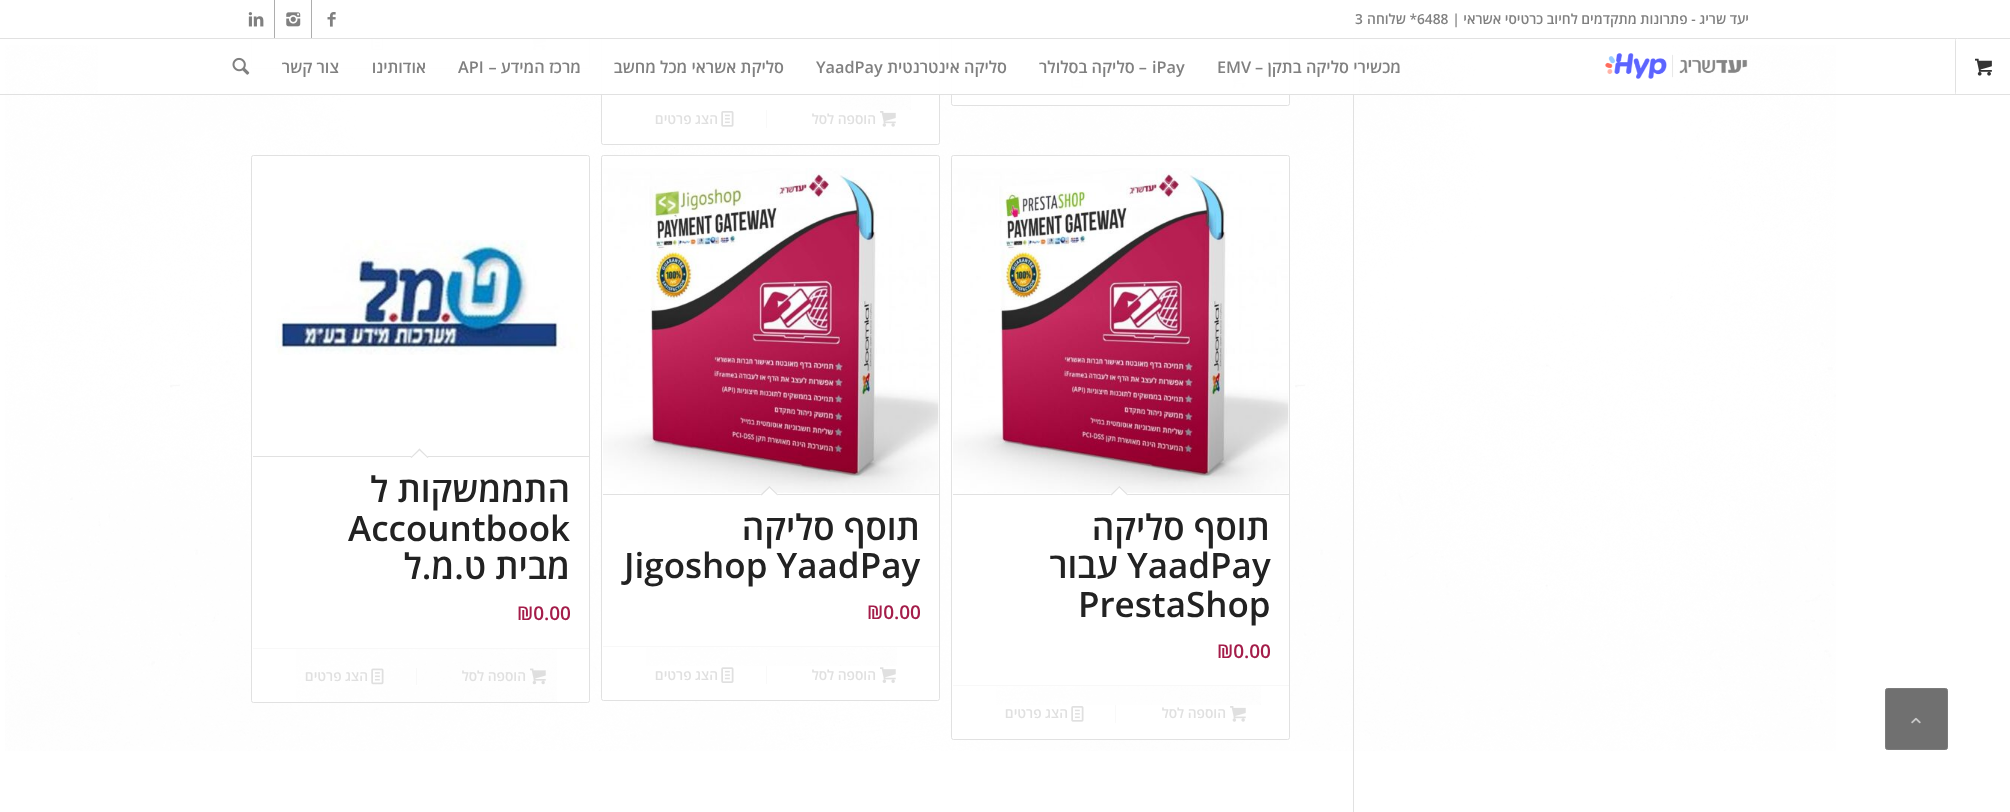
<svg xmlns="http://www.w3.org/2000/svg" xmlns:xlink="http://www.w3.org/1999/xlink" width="2010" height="812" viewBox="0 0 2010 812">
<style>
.cls-1{font:600 13.75px Open Sans;direction:rtl;fill:#808080}
.cls-2{font:600 13.75px Open Sans;fill:#808080}
.cls-3{font:600 16.25px Open Sans;direction:rtl;fill:#808080}
.cls-4{font:600 16.25px Open Sans;fill:#808080}
.cls-5{font:600 13.75px Open Sans;direction:rtl;fill:#e0e0e0}
.cls-6{font:600 35px Open Sans;direction:rtl;fill:#222222}
.cls-7{font:600 35px Open Sans;fill:#222222}
.cls-8{font:600 19px Open Sans;fill:#a41d4a}
</style>
<rect width="100%" height="100%" fill="#ffffff"/>
<rect fill="#707070" stroke="#7c7c7c" x="1885.5" y="688.5" width="62" height="61" rx="2"/>
<image xlink:href="image0.png" x="1911" y="717" width="10" height="7"/>
<image xlink:href="image7.png" x="5" y="45" width="1831" height="706"/>
<rect fill="#ffffff" x="951" y="-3" width="339" height="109" rx="2.5"/>
<image xlink:href="image8.png" x="1190" y="52" width="57" height="19"/>
<rect fill="none" stroke="#e1e1e1" x="951.5" y="-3.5" width="338" height="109" rx="2"/>
<rect fill="none" stroke="#e1e1e1" x="251.5" y="-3.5" width="338" height="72" rx="2"/>
<rect fill="#f9f9f9" x="416" y="34" width="1" height="17"/>
<rect fill="#ffffff" x="601" y="-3" width="339" height="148" rx="2.5"/>
<image xlink:href="image13.png" x="840" y="91" width="71" height="19"/>
<rect fill="none" stroke="#e1e1e1" x="601.5" y="-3.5" width="338" height="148" rx="2"/>
<rect fill="#ffffff" x="251" y="0" width="1039" height="38"/>
<rect fill="#e1e1e1" x="1353" y="39" width="1" height="773"/>
<rect fill="#e1e1e1" x="0" y="94" width="1958" height="1"/>
<rect fill="none" stroke="#e1e1e1" x="1955.5" y="38.5" width="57" height="56" rx="2"/>
<rect fill="#e1e1e1" x="0" y="38" width="1957" height="1"/>
<image xlink:href="image1.png" x="327" y="12" width="9" height="15"/>
<rect fill="#adadad" x="311" y="0" width="1" height="38"/>
<image xlink:href="image2.png" x="286" y="12" width="15" height="15"/>
<rect fill="#adadad" x="274" y="0" width="1" height="38"/>
<image xlink:href="image3.png" x="248" y="12" width="16" height="15"/>
<rect fill="#f9f9f9" x="953" y="51" width="336" height="1"/>
<image xlink:href="image9.png" x="1230" y="72" width="16" height="16"/>
<rect fill="#f9f9f9" x="1115" y="71" width="1" height="18"/>
<image xlink:href="image10.png" x="1071" y="72" width="13" height="16"/>
<image xlink:href="image11.png" x="532" y="39" width="14" height="12"/>
<image xlink:href="image12.png" x="371" y="39" width="13" height="12"/>
<rect fill="#f9f9f9" x="603" y="90" width="336" height="1"/>
<rect fill="#ffffff" fill-opacity="0.95" x="98" y="39" width="1261" height="55"/>
<rect fill="#ffffff" x="1956" y="39" width="1" height="55"/>
<image xlink:href="image4.png" x="1975" y="58" width="17" height="18"/>
<image xlink:href="image5.png" x="1605" y="53" width="143" height="26"/>
<image xlink:href="image6.png" x="232" y="57" width="18" height="18"/>
<image xlink:href="image14.png" x="880" y="111" width="16" height="16"/>
<rect fill="#f9f9f9" x="766" y="110" width="1" height="18"/>
<image xlink:href="image15.png" x="721" y="111" width="13" height="16"/>
<rect fill="#ffffff" x="951" y="155" width="339" height="585" rx="2.5"/>
<image xlink:href="image16.png" x="996" y="686" width="265" height="19"/>
<rect fill="none" stroke="#e1e1e1" x="951.5" y="155.5" width="338" height="584" rx="2"/>
<image xlink:href="image17.png" x="953" y="168" width="336" height="325"/>
<rect fill="#e1e1e1" x="953" y="494" width="336" height="1"/>
<path fill="#ffffff" d="M1119.5 486L1128 494.5L1119.5 503.5L1110.5 494.5Z"/>
<path fill="#e1e1e1" d="M1119.5 486L1128 494.5L1127.5 495.5L1118.5 487Z"/>
<path fill="#e1e1e1" d="M1119.5 486L1120 487L1111.5 495.5L1110.5 494.5Z"/>
<rect fill="#f8f8f8" x="953" y="685" width="336" height="1"/>
<image xlink:href="image14.png" x="1230" y="706" width="16" height="16"/>
<rect fill="#f9f9f9" x="1115" y="705" width="1" height="18"/>
<image xlink:href="image15.png" x="1071" y="706" width="13" height="16"/>
<rect fill="#ffffff" x="601" y="155" width="339" height="546" rx="2.5"/>
<image xlink:href="image18.png" x="646" y="647" width="251" height="19"/>
<rect fill="none" stroke="#e1e1e1" x="601.5" y="155.5" width="338" height="545" rx="2"/>
<image xlink:href="image19.png" x="603" y="168" width="336" height="325"/>
<rect fill="#e1e1e1" x="603" y="494" width="336" height="1"/>
<path fill="#ffffff" d="M769.5 486L778 494.5L769.5 503.5L760.5 494.5Z"/>
<path fill="#e1e1e1" d="M769.5 486L778 494.5L777.5 495.5L768.5 487Z"/>
<path fill="#e1e1e1" d="M769.5 486L770.5 487L761.5 495.5L760.5 494.5Z"/>
<rect fill="#f8f8f8" x="603" y="646" width="336" height="1"/>
<image xlink:href="image9.png" x="880" y="667" width="16" height="16"/>
<rect fill="#f9f9f9" x="766" y="666" width="1" height="18"/>
<image xlink:href="image10.png" x="721" y="667" width="13" height="16"/>
<rect fill="#ffffff" x="251" y="155" width="339" height="548" rx="2.5"/>
<image xlink:href="image20.png" x="296" y="649" width="261" height="53"/>
<rect fill="none" stroke="#e1e1e1" x="251.5" y="155.5" width="338" height="547" rx="2"/>
<image xlink:href="image21.png" x="275" y="240" width="303" height="115"/>
<rect fill="#e1e1e1" x="253" y="456" width="336" height="1"/>
<path fill="#ffffff" d="M419.5 448.5L428.5 457.5L419.5 466L410.5 457.5Z"/>
<path fill="#e1e1e1" d="M419.5 448.5L428.5 457.5L427.5 458L418.5 449.5Z"/>
<path fill="#e1e1e1" d="M419.5 448.5L420.5 449.5L411.5 458L410.5 457.5Z"/>
<rect fill="#f8f8f8" x="253" y="648" width="336" height="1"/>
<image xlink:href="image22.png" x="530" y="668" width="16" height="17"/>
<rect fill="#f8f8f8" x="416" y="668" width="1" height="17"/>
<image xlink:href="image23.png" x="371" y="668" width="13" height="17"/>
<text class="cls-1" x="1749" y="24">יעד שריג - פתרונות מתקדמים לחיוב כרטיסי אשראי |</text>
<text class="cls-2" x="1417" y="24">6488</text>
<text class="cls-1" x="1417" y="24">* שלוחה</text>
<text class="cls-2" x="1355" y="24">3</text>
<text class="cls-3" x="1401" y="73">מכשירי סליקה בתקן –</text>
<text class="cls-4" x="1217" y="73">EMV</text>
<text class="cls-4" x="1152" y="73">iPay</text>
<text class="cls-3" x="1147" y="73">– סליקה בסלולר</text>
<text class="cls-3" x="1007" y="73">סליקה אינטרנטית</text>
<text class="cls-4" x="816" y="73">YaadPay</text>
<text class="cls-3" x="784" y="73">סליקת אשראי מכל מחשב</text>
<text class="cls-3" x="581" y="73">מרכז המידע –</text>
<text class="cls-4" x="458" y="73">API</text>
<text class="cls-3" x="426" y="73">אודותינו</text>
<text class="cls-3" x="339" y="73">צור קשר</text>
<text class="cls-5" x="876" y="124">הוספה לסל</text>
<text class="cls-5" x="718" y="124">הצג פרטים</text>
<text class="cls-6" x="1270" y="540">תוסף סליקה</text>
<text class="cls-7" x="1127" y="578">YaadPay</text>
<text class="cls-6" x="1118" y="578">עבור</text>
<text class="cls-7" x="1078" y="617">PrestaShop</text>
<text class="cls-8" x="1217" y="658">₪0.00</text>
<text class="cls-5" x="1226" y="718">הוספה לסל</text>
<text class="cls-5" x="1068" y="718">הצג פרטים</text>
<text class="cls-6" x="920" y="540">תוסף סליקה</text>
<text class="cls-7" x="624" y="578">Jigoshop YaadPay</text>
<text class="cls-8" x="867" y="619">₪0.00</text>
<text class="cls-5" x="876" y="680">הוספה לסל</text>
<text class="cls-5" x="718" y="680">הצג פרטים</text>
<text class="cls-6" x="570" y="502">התממשקות ל</text>
<text class="cls-7" x="348" y="541">Accountbook</text>
<text class="cls-6" x="570" y="579">מבית ט.מ.ל</text>
<text class="cls-8" x="517" y="620">₪0.00</text>
<text class="cls-5" x="526" y="681">הוספה לסל</text>
<text class="cls-5" x="368" y="681">הצג פרטים</text>
</svg>
